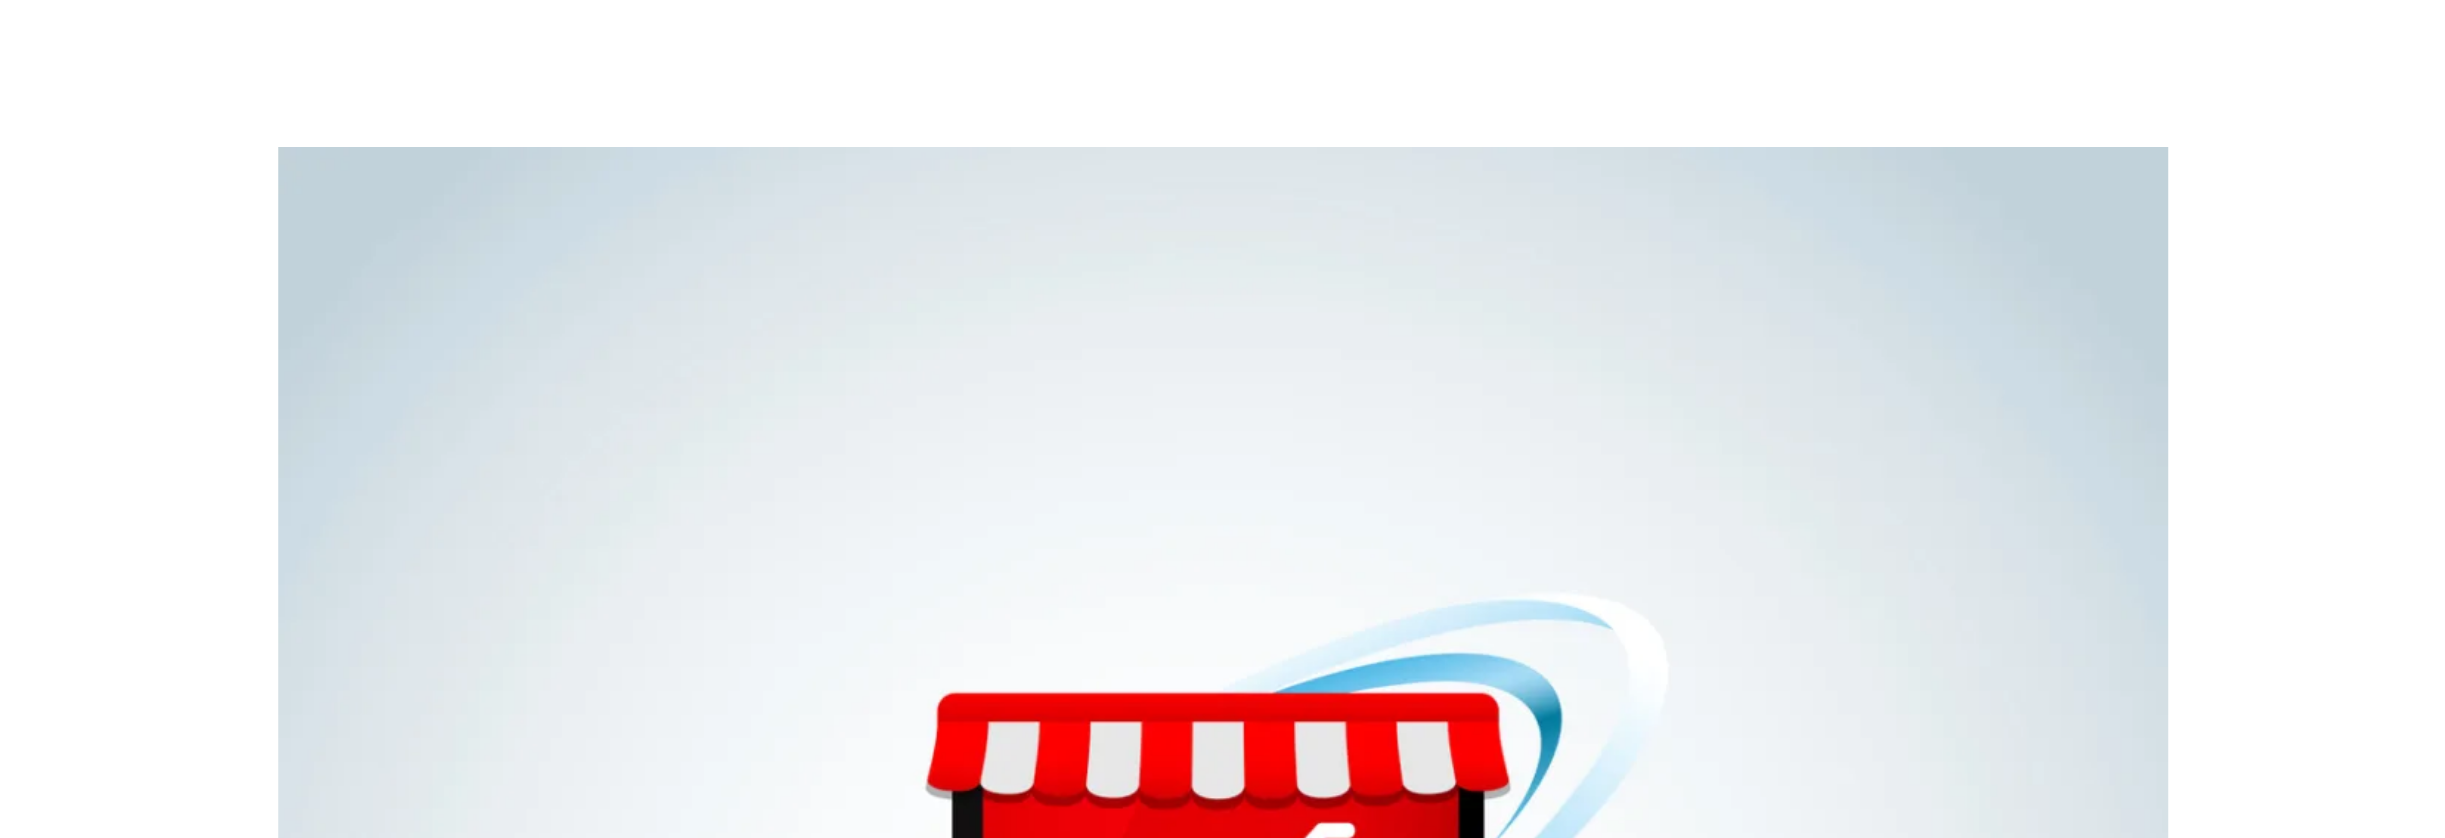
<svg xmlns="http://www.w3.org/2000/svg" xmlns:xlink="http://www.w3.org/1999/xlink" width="2445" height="838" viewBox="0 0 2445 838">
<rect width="100%" height="100%" fill="#ffffff"/>
<image xlink:href="image0.png" x="278" y="147" width="1891" height="691"/>
</svg>
